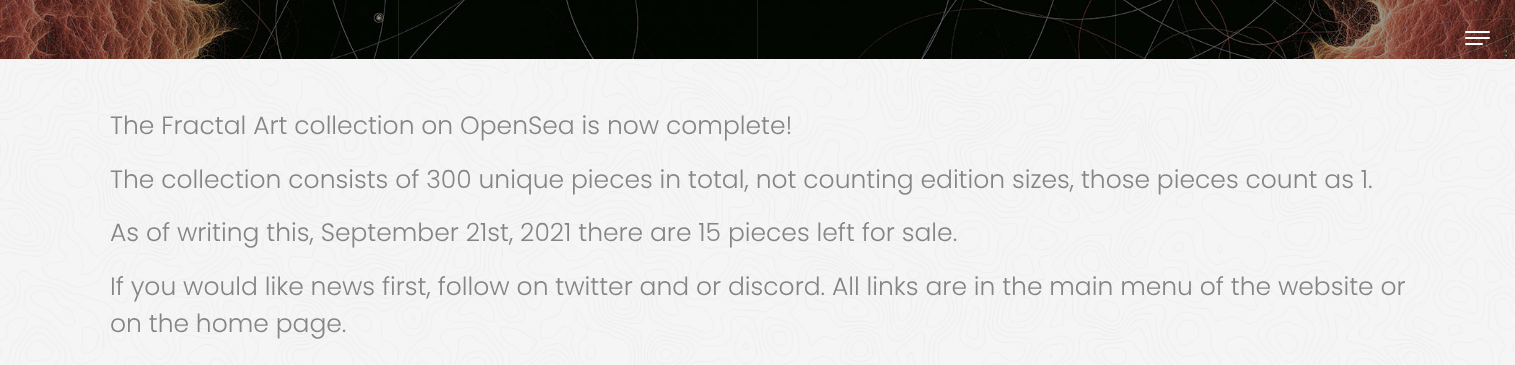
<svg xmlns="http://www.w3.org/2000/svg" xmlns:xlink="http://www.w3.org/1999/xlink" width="1515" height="365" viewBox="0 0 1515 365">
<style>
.cls-1{font:300 25px Poppins;fill:#858585}
</style>
<rect width="100%" height="100%" fill="#ffffff"/>
<image xlink:href="image0.png" x="0" y="59" width="1515" height="306"/>
<image xlink:href="image1.png" x="0" y="0" width="1515" height="59"/>
<rect fill="#ffffff" fill-opacity="0.1" x="398" y="0" width="1" height="59"/>
<rect fill="#1c1f1a" x="757" y="0" width="1" height="59"/>
<rect fill="#ffffff" fill-opacity="0.1" x="1115" y="0" width="1" height="59"/>
<rect fill="#ffffff" x="1465" y="31" width="25" height="2" rx="1"/>
<rect fill="#ffffff" x="1465" y="37" width="25" height="2" rx="1"/>
<rect fill="#ffffff" x="1465" y="43" width="18" height="2" rx="1"/>
<text class="cls-1" x="110" y="134">The Fractal Art collection on OpenSea is now complete!</text>
<text class="cls-1" x="110" y="188">The collection consists of 300 unique pieces in total, not counting edition sizes, those pieces count as 1.</text>
<text class="cls-1" x="110" y="241">As of writing this, September 21st, 2021 there are 15 pieces left for sale.</text>
<text class="cls-1"><tspan x="110" y="295">If you would like news first, follow on twitter and or discord. All links are in the main menu of the website or</tspan><tspan x="110" y="332">on the home page.</tspan></text>
</svg>
